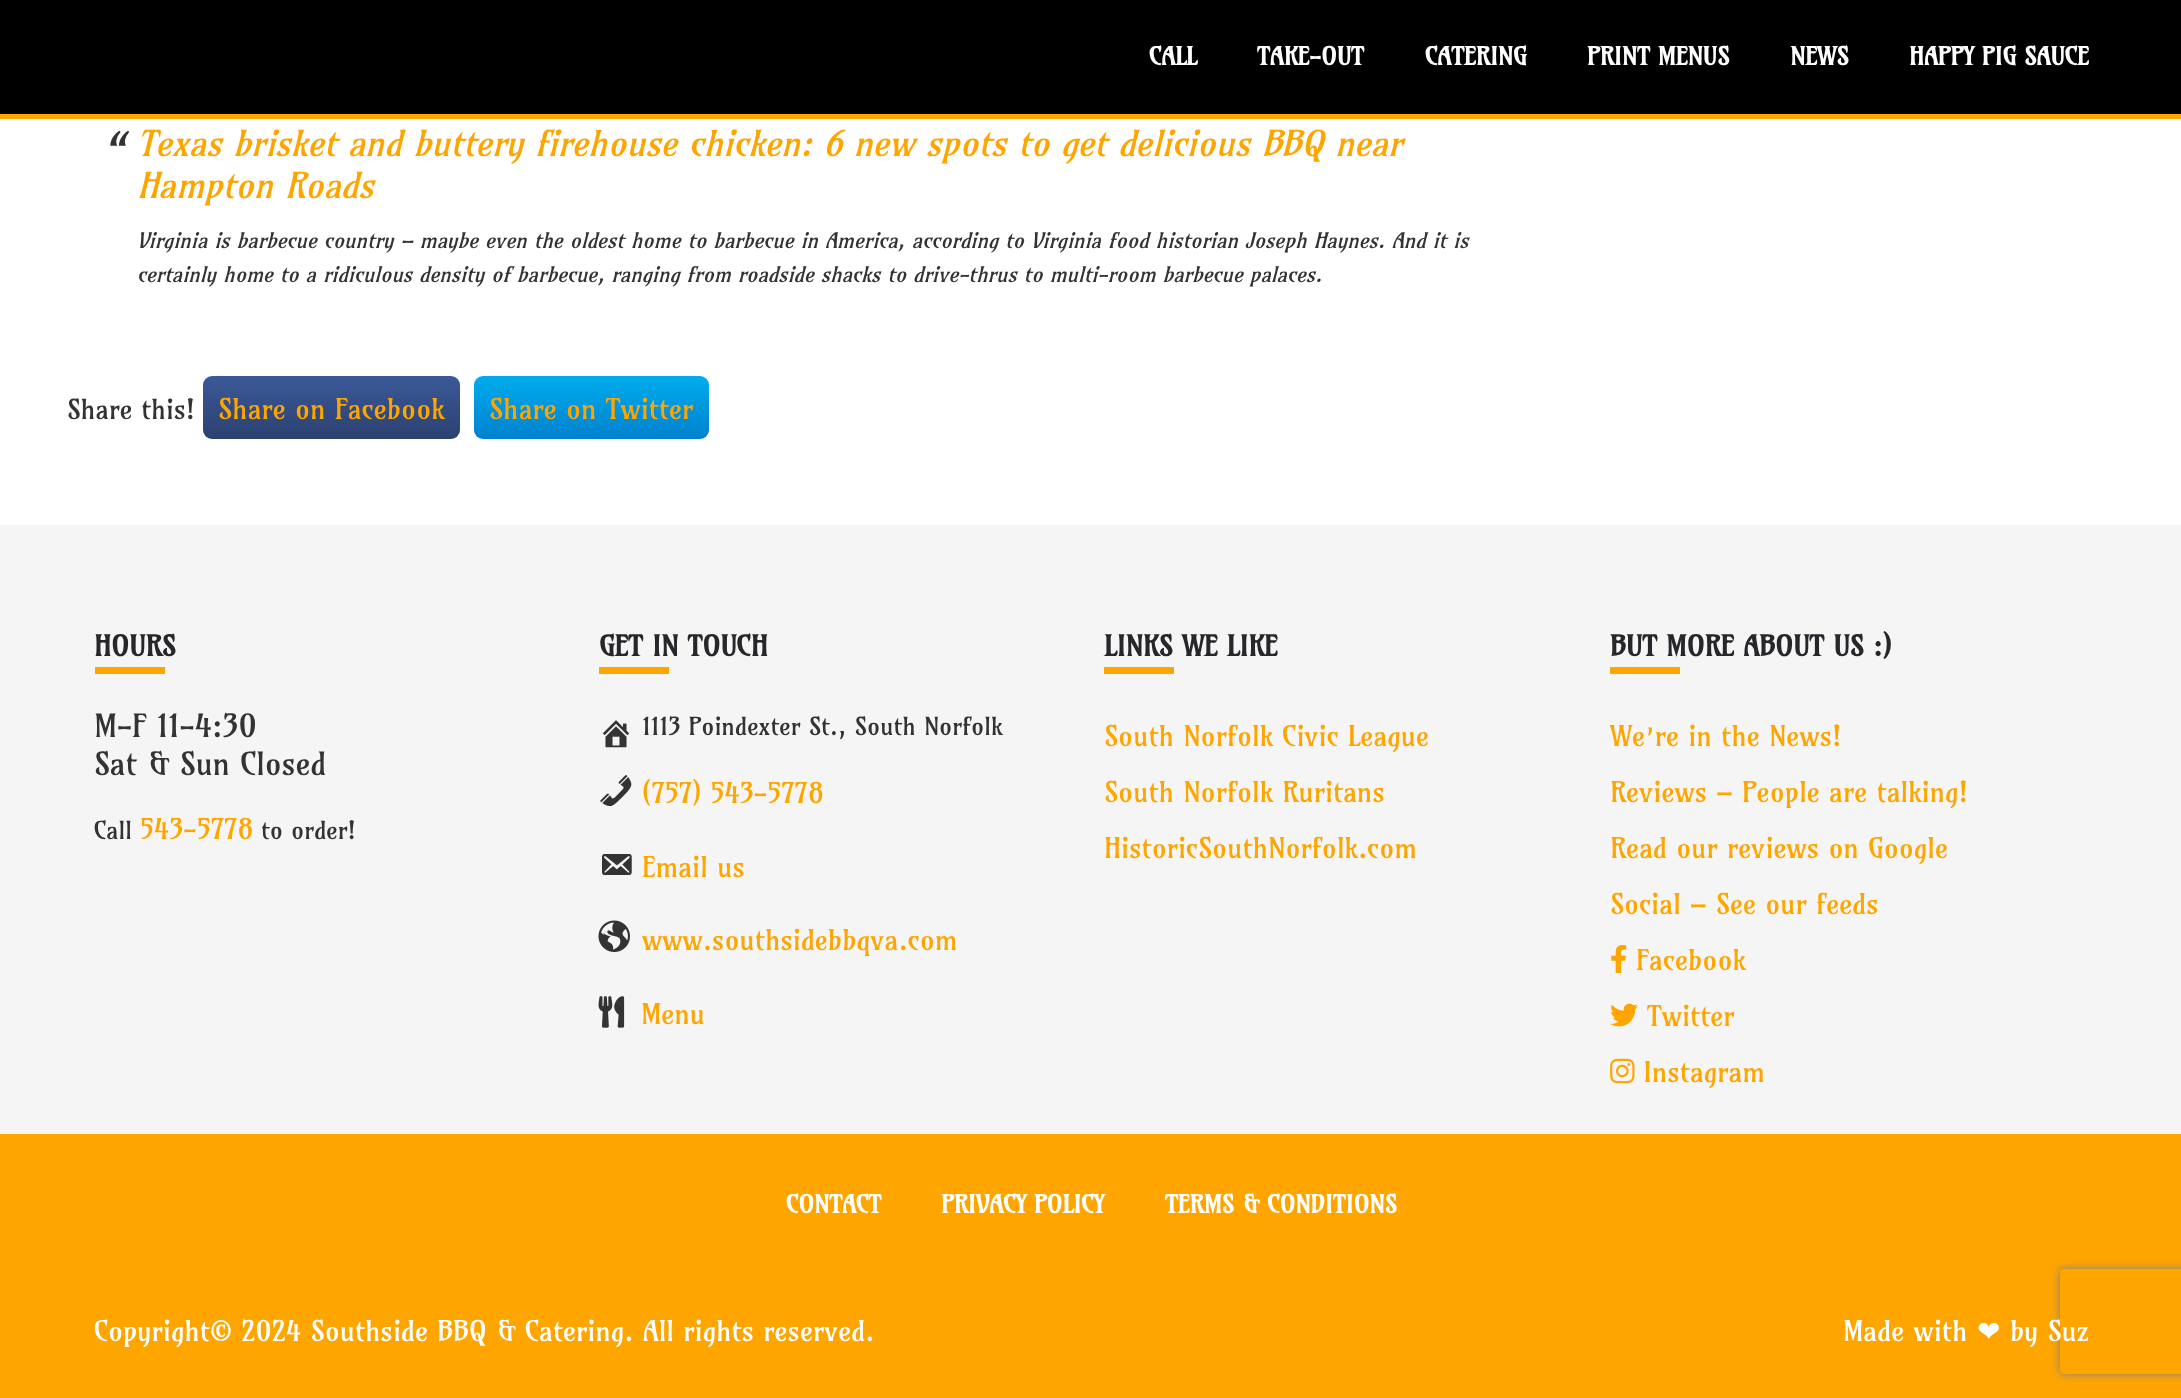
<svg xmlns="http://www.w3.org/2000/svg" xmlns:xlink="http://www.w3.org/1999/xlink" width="2181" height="1398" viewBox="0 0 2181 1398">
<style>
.cls-1{font:bold 24.5px Amarante;fill:#ffffff}
.cls-2{font:italic 52px Amarante;fill:#333333}
.cls-3{font:italic 35px Amarante;fill:#ffa500}
.cls-4{font:italic 21px Amarante;fill:#333333}
.cls-5{font:27px Amarante;fill:#333333}
.cls-6{font:28px Amarante;fill:#ffa500}
.cls-7{font:bold 28px Amarante;fill:#28262b}
.cls-8{font:31.5px Amarante;fill:#333333}
.cls-9{font:24.5px Amarante;fill:#333333}
.cls-10{font:28px Amarante;fill:#ffffff}
.cls-11{font:28px DejaVu Sans;fill:#ffffff}
</style>
<defs>
<linearGradient id="g1" gradientUnits="userSpaceOnUse" x1="332" y1="376" x2="332" y2="439"><stop offset="0" stop-color="#3b5998"/><stop offset="1" stop-color="#2b4170"/></linearGradient>
<linearGradient id="g2" gradientUnits="userSpaceOnUse" x1="592" y1="376" x2="592" y2="439"><stop offset="0" stop-color="#00aced"/><stop offset="1" stop-color="#0081ce"/></linearGradient>
<clipPath id="clip1"><path d="M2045 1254H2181V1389H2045ZM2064 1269H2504C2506 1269 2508 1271 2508 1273V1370C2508 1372 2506 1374 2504 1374H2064C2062 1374 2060 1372 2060 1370V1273C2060 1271 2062 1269 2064 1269Z" clip-rule="evenodd"/></clipPath>
</defs>
<rect width="100%" height="100%" fill="#ffffff"/>
<rect fill="#000000" x="0" y="0" width="2181" height="114"/>
<rect fill="#ffa500" x="0" y="114" width="2181" height="5"/>
<rect fill="url(#g1)" x="203" y="376" width="257" height="63" rx="9"/>
<rect fill="url(#g2)" x="474" y="376" width="235" height="63" rx="9"/>
<rect fill="#f5f5f5" x="0" y="525" width="2181" height="609"/>
<rect fill="#ffa500" x="95" y="667" width="70" height="7"/>
<rect fill="#ffa500" x="599" y="667" width="70" height="7"/>
<image xlink:href="image0.png" x="602" y="720" width="28" height="28"/>
<image xlink:href="image1.png" x="600" y="775" width="32" height="32"/>
<image xlink:href="image2.png" x="602" y="854" width="30" height="21"/>
<image xlink:href="image3.png" x="598" y="920" width="32" height="32"/>
<image xlink:href="image4.png" x="598" y="996" width="27" height="32"/>
<rect fill="#ffa500" x="1104" y="667" width="70" height="7"/>
<rect fill="#ffa500" x="1610" y="667" width="70" height="7"/>
<image xlink:href="image5.png" x="1611" y="945" width="16" height="28"/>
<image xlink:href="image6.png" x="1610" y="1003" width="28" height="24"/>
<image xlink:href="image7.png" x="1610" y="1058" width="25" height="26"/>
<rect fill="#ffa500" x="0" y="1134" width="2181" height="264"/>
<g clip-path="url(#clip1)">
<rect fill="#808080" filter="blur(4.5px)" x="2060" y="1269" width="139" height="105" rx="4"/>
</g>
<text class="cls-1" x="1149" y="65">CALL</text>
<text class="cls-1" x="1257" y="65">TAKE-OUT</text>
<text class="cls-1" x="1425" y="65">CATERING</text>
<text class="cls-1" x="1587" y="65">PRINT MENUS</text>
<text class="cls-1" x="1790" y="65">NEWS</text>
<text class="cls-1" x="1909" y="65">HAPPY PIG SAUCE</text>
<text class="cls-2" x="102" y="166">“</text>
<text class="cls-3"><tspan x="137" y="156">Texas brisket and buttery firehouse chicken: 6 new spots to get delicious BBQ near</tspan><tspan x="137" y="198">Hampton Roads</tspan></text>
<text class="cls-4"><tspan x="137" y="248">Virginia is barbecue country – maybe even the oldest home to barbecue in America, according to Virginia food historian Joseph Haynes. And it is</tspan><tspan x="137" y="282">certainly home to a ridiculous density of barbecue, ranging from roadside shacks to drive-thrus to multi-room barbecue palaces.</tspan></text>
<text class="cls-5" x="67" y="419">Share this!</text>
<text class="cls-6" x="218" y="419">Share on Facebook</text>
<text class="cls-6" x="489" y="419">Share on Twitter</text>
<text class="cls-7" x="94" y="656">HOURS</text>
<text class="cls-8"><tspan x="94" y="737">M-F 11-4:30</tspan><tspan x="94" y="775">Sat &amp; Sun Closed</tspan></text>
<text class="cls-9" x="94" y="839">Call</text>
<text class="cls-6" x="140" y="839">543-5778</text>
<text class="cls-9" x="261" y="839">to order!</text>
<text class="cls-7" x="599" y="656">GET IN TOUCH</text>
<text class="cls-9" x="642" y="735">1113 Poindexter St., South Norfolk</text>
<text class="cls-6" x="642" y="803">(757) 543-5778</text>
<text class="cls-6" x="642" y="877">Email us</text>
<text class="cls-6" x="642" y="950">www.southsidebbqva.com</text>
<text class="cls-6" x="641" y="1024">Menu</text>
<text class="cls-7" x="1104" y="656">LINKS WE LIKE</text>
<text class="cls-6" x="1104" y="746">South Norfolk Civic League</text>
<text class="cls-6" x="1104" y="802">South Norfolk Ruritans</text>
<text class="cls-6" x="1104" y="858">HistoricSouthNorfolk.com</text>
<text class="cls-7" x="1610" y="656">BUT MORE ABOUT US :)</text>
<text class="cls-6" x="1610" y="746">We’re in the News!</text>
<text class="cls-6" x="1610" y="802">Reviews – People are talking!</text>
<text class="cls-6" x="1610" y="858">Read our reviews on Google</text>
<text class="cls-6" x="1610" y="914">Social – See our feeds</text>
<text class="cls-6" x="1636" y="970">Facebook</text>
<text class="cls-6" x="1647" y="1026">Twitter</text>
<text class="cls-6" x="1643" y="1082">Instagram</text>
<text class="cls-1" x="786" y="1213">CONTACT</text>
<text class="cls-1" x="941" y="1213">PRIVACY POLICY</text>
<text class="cls-1" x="1165" y="1213">TERMS &amp; CONDITIONS</text>
<text class="cls-10" x="94" y="1341">Copyright© 2024 Southside BBQ &amp; Catering. All rights reserved.</text>
<text class="cls-10" x="1843" y="1341">Made with</text>
<text class="cls-11" x="1977" y="1341">❤</text>
<text class="cls-10" x="2010" y="1341">by Suz</text>
</svg>
